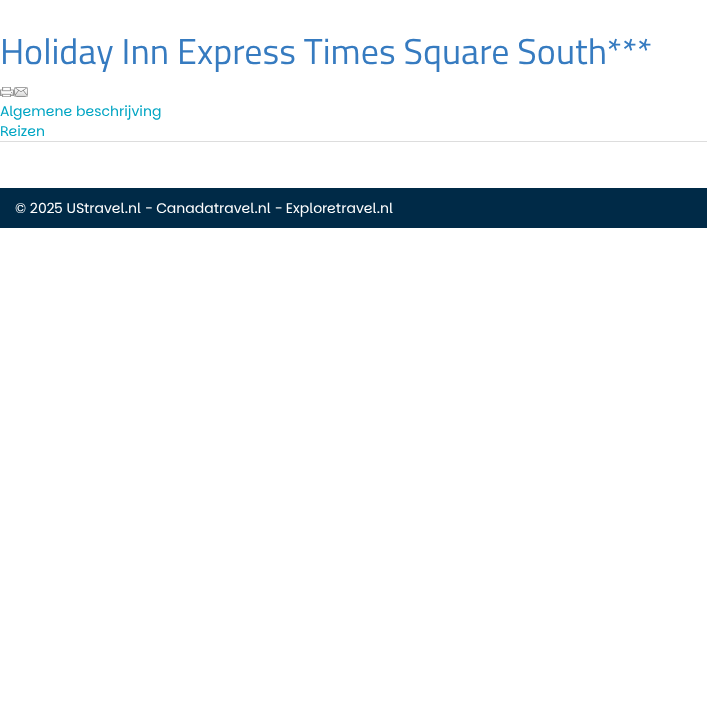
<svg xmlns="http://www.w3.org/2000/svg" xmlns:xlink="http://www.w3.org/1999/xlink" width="707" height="720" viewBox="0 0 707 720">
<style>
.cls-1{font:36px Titillium Web;fill:#367bc0}
.cls-2{font:14px Parkinsans;fill:#00a5c3}
.cls-3{font:14px Parkinsans;fill:#ffffff}
</style>
<rect width="100%" height="100%" fill="#ffffff"/>
<image xlink:href="image0.png" x="0" y="87" width="14" height="10"/>
<image xlink:href="image1.png" x="14" y="87" width="14" height="10"/>
<rect fill="#dddddd" x="0" y="141" width="707" height="1"/>
<rect fill="#002a47" x="0" y="188" width="707" height="40"/>
<text class="cls-1" x="0" y="64">Holiday Inn Express Times Square South***</text>
<text class="cls-2"><tspan x="0" y="116">Algemene beschrijving</tspan><tspan x="0" y="136">Reizen</tspan></text>
<text class="cls-3" x="15" y="213">© 2025 UStravel.nl - Canadatravel.nl - Exploretravel.nl</text>
</svg>
